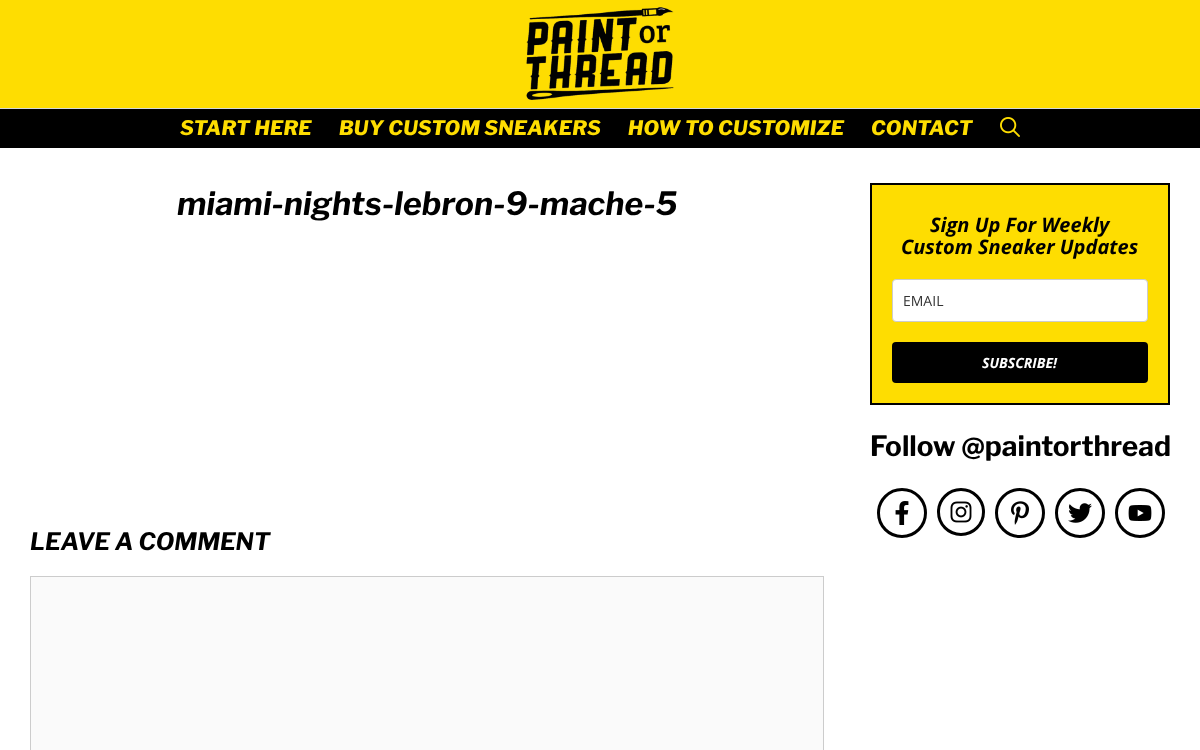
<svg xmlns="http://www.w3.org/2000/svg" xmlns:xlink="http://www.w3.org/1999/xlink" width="1200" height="750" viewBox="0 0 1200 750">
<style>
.cls-1{font:italic 800 20px Libre Franklin;letter-spacing:0.25px;fill:#fedd01}
.cls-2{font:italic bold 32px Libre Franklin;letter-spacing:0.15px;fill:#000000}
.cls-3{font:italic bold 24px Libre Franklin;fill:#000000}
.cls-4{font:italic bold 20px Open Sans;fill:#000000}
.cls-5{font:14px Open Sans;fill:#333333}
.cls-6{font:italic bold 14px Open Sans;fill:#ffffff}
.cls-7{font:bold 28px Libre Franklin;fill:#000000}
</style>
<rect width="100%" height="100%" fill="#ffffff"/>
<rect fill="#fedd01" x="0" y="0" width="1200" height="108"/>
<image xlink:href="image0.png" x="526" y="7" width="148" height="93"/>
<rect fill="#000000" x="0" y="109" width="1200" height="39"/>
<rect fill="#d4d7d8" x="0" y="108" width="1200" height="1"/>
<image xlink:href="image1.png" x="1000" y="117" width="20" height="20"/>
<rect fill="#fafafa" stroke="#cccccc" x="30.5" y="576.5" width="793" height="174"/>
<rect fill="#fedd01" stroke="#000000" stroke-width="2" x="871" y="184" width="298" height="220"/>
<rect fill="#ffffff" stroke="#cccccc" x="892.5" y="279.5" width="255" height="42" rx="3.5"/>
<rect fill="#000000" x="892" y="342" width="256" height="41" rx="4"/>
<circle fill="none" stroke="#000000" stroke-width="3" cx="902" cy="513" r="23.5"/>
<image xlink:href="image2.png" x="895" y="501" width="14" height="24"/>
<circle fill="none" stroke="#000000" stroke-width="3" cx="961" cy="512" r="22.5"/>
<image xlink:href="image3.png" x="950" y="501" width="22" height="22"/>
<circle fill="none" stroke="#000000" stroke-width="3" cx="1020" cy="513" r="23.5"/>
<image xlink:href="image4.png" x="1011" y="501" width="18" height="24"/>
<circle fill="none" stroke="#000000" stroke-width="3" cx="1080" cy="513" r="23.5"/>
<image xlink:href="image5.png" x="1068" y="503" width="24" height="20"/>
<circle fill="none" stroke="#000000" stroke-width="3" cx="1140" cy="513" r="23.5"/>
<image xlink:href="image6.png" x="1128" y="505" width="24" height="16"/>
<text class="cls-1" x="180" y="135">START HERE</text>
<text class="cls-1" x="339" y="135">BUY CUSTOM SNEAKERS</text>
<text class="cls-1" x="628" y="135">HOW TO CUSTOMIZE</text>
<text class="cls-1" x="871" y="135">CONTACT</text>
<text class="cls-2" x="177" y="215">miami-nights-lebron-9-mache-5</text>
<text class="cls-3" x="30" y="550">LEAVE A COMMENT</text>
<text class="cls-4" x="930" y="232">Sign Up For Weekly</text>
<text class="cls-4" x="901" y="254">Custom Sneaker Updates</text>
<text class="cls-5" x="903" y="306">EMAIL</text>
<text class="cls-6" x="982" y="368">SUBSCRIBE!</text>
<text class="cls-7" x="870" y="456">Follow @paintorthread</text>
</svg>
